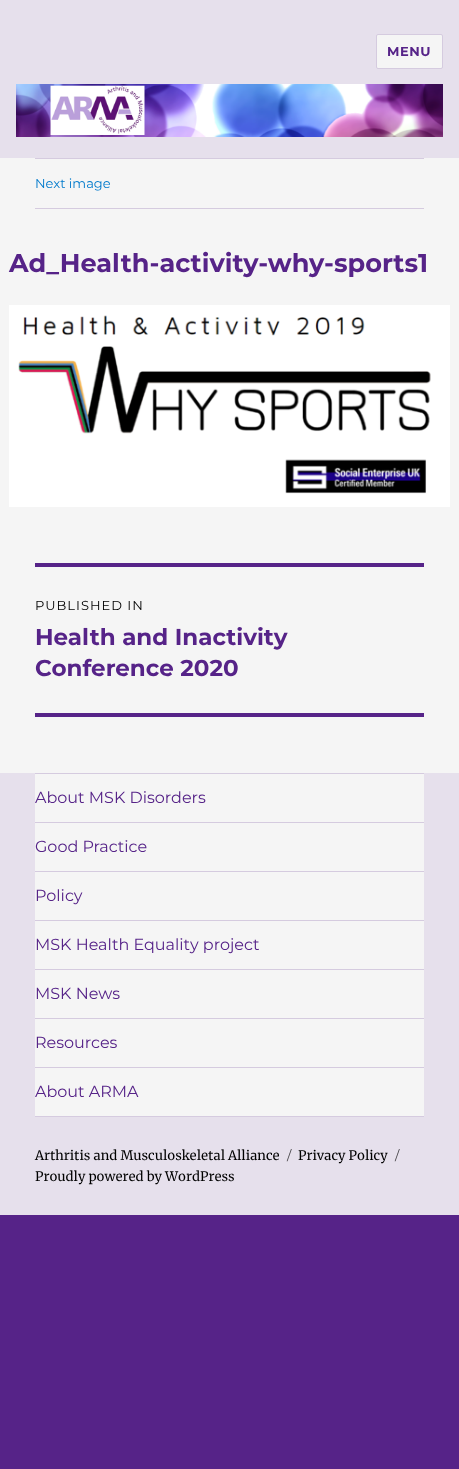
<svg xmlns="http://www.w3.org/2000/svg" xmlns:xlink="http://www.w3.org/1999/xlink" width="459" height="1469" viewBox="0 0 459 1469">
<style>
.cls-1{font:100 13px Montserrat;letter-spacing:0.5px;fill:#562388}
.cls-2{font:100 13px 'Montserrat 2';fill:#007acc}
.cls-3{font:100 25.6px Montserrat;fill:#562388}
.cls-4{font:100 13px 'Montserrat 2';letter-spacing:1px;fill:#000000}
.cls-5{font:100 23px Montserrat;fill:#562388}
.cls-6{font:100 16px 'Montserrat 2';fill:#562388}
.cls-7{font:13px Merriweather;fill:#000000}
.cls-8{font:100 13px 'Montserrat 2';fill:#454347}
</style>
<rect width="100%" height="100%" fill="#562388"/>
<rect fill="#e6e0ec" x="0" y="0" width="459" height="1215"/>
<rect fill="#f5f5f5" stroke="#d5cbdf" x="376.5" y="34.5" width="66" height="34" rx="1.5"/>
<image xlink:href="image0.png" x="16" y="84" width="427" height="53"/>
<rect fill="#f5f5f5" x="0" y="158" width="459" height="615"/>
<rect fill="#d5cbdf" x="35" y="158" width="389" height="1"/>
<rect fill="#d5cbdf" x="35" y="208" width="389" height="1"/>
<image xlink:href="image1.png" x="9" y="305" width="441" height="202"/>
<rect fill="#562388" x="35" y="563" width="389" height="4"/>
<rect fill="#562388" x="35" y="713" width="389" height="4"/>
<rect fill="#f5f5f5" x="35" y="774" width="389" height="342"/>
<rect fill="#d5cbdf" x="35" y="1116" width="389" height="1"/>
<rect fill="#d5cbdf" x="35" y="773" width="389" height="1"/>
<rect fill="#d5cbdf" x="35" y="822" width="389" height="1"/>
<rect fill="#d5cbdf" x="35" y="871" width="389" height="1"/>
<rect fill="#d5cbdf" x="35" y="920" width="389" height="1"/>
<rect fill="#d5cbdf" x="35" y="969" width="389" height="1"/>
<rect fill="#d5cbdf" x="35" y="1018" width="389" height="1"/>
<rect fill="#d5cbdf" x="35" y="1067" width="389" height="1"/>
<text class="cls-1" x="387" y="56">MENU</text>
<text class="cls-2" x="35" y="188">Next image</text>
<text class="cls-3" x="9" y="272">Ad_Health-activity-why-sports1</text>
<text class="cls-4" x="35" y="610">PUBLISHED IN</text>
<text class="cls-5"><tspan x="35" y="645">Health and Inactivity</tspan><tspan x="35" y="676">Conference 2020</tspan></text>
<text class="cls-6" x="35" y="803">About MSK Disorders</text>
<text class="cls-6" x="35" y="852">Good Practice</text>
<text class="cls-6" x="35" y="901">Policy</text>
<text class="cls-6" x="35" y="950">MSK Health Equality project</text>
<text class="cls-6" x="35" y="999">MSK News</text>
<text class="cls-6" x="35" y="1048">Resources</text>
<text class="cls-6" x="35" y="1097">About ARMA</text>
<text class="cls-7" x="35" y="1160">Arthritis and Musculoskeletal Alliance</text>
<text class="cls-8" x="287" y="1160">/</text>
<text class="cls-7" x="298" y="1160">Privacy Policy</text>
<text class="cls-8" x="395" y="1160">/</text>
<text class="cls-7" x="35" y="1181">Proudly powered by WordPress</text>
</svg>
